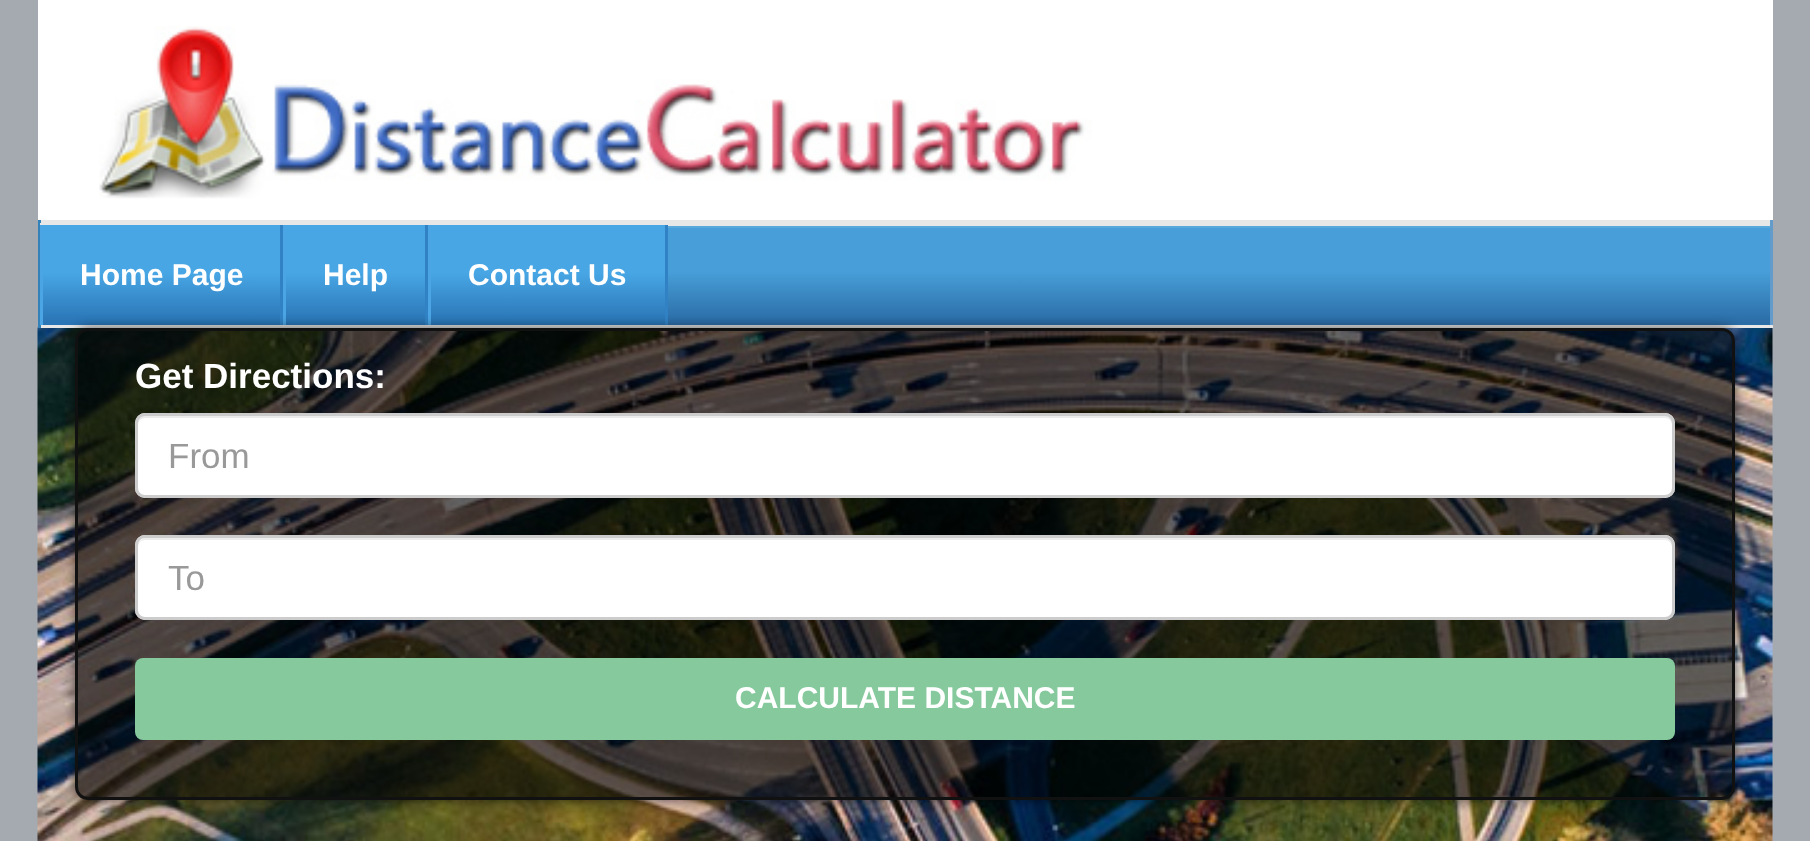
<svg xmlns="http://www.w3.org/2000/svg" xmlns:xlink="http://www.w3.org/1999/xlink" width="1810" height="841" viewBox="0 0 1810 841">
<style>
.cls-1{font:bold 30px Liberation Sans;fill:#ffffff}
.cls-2{font:bold 35px Liberation Sans;fill:#ffffff}
.cls-3{font:35px Liberation Sans;fill:#999999}
</style>
<defs>
<linearGradient id="g1" gradientUnits="userSpaceOnUse" x1="40" y1="325" x2="40" y2="223"><stop offset="0.03" stop-color="#2b6da7"/><stop offset="0.52" stop-color="#479ed8"/></linearGradient>
<linearGradient id="g2" gradientUnits="userSpaceOnUse" x1="40" y1="325" x2="40" y2="223"><stop offset="0.03" stop-color="#407cb0"/><stop offset="0.52" stop-color="#59a8dc"/></linearGradient>
<linearGradient id="g3" gradientUnits="userSpaceOnUse" x1="43" y1="325" x2="43" y2="225"><stop offset="0.03" stop-color="#2a75b6"/><stop offset="0.52" stop-color="#48a6e4"/></linearGradient>
<linearGradient id="g4" gradientUnits="userSpaceOnUse" x1="285" y1="325" x2="285" y2="225"><stop offset="0.03" stop-color="#2a75b6"/><stop offset="0.52" stop-color="#48a6e4"/></linearGradient>
<linearGradient id="g5" gradientUnits="userSpaceOnUse" x1="430" y1="325" x2="430" y2="225"><stop offset="0.03" stop-color="#2a75b6"/><stop offset="0.52" stop-color="#48a6e4"/></linearGradient>
<clipPath id="clip1"><path d="M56 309H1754V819H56ZM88 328H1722C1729 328 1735 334 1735 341V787C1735 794 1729 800 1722 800H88C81 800 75 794 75 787V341C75 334 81 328 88 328Z" clip-rule="evenodd"/></clipPath>
</defs>
<rect width="100%" height="100%" fill="#a5aab0"/>
<rect fill="#ffffff" x="38" y="0" width="1735" height="220"/>
<image xlink:href="image0.png" x="99" y="26" width="993" height="173"/>
<rect fill="url(#g1)" x="668" y="228" width="1102" height="97"/>
<rect fill="url(#g2)" x="668" y="226" width="1102" height="2"/>
<rect fill="#e7e7e7" x="38" y="220" width="1735" height="3"/>
<image xlink:href="image1.png" x="37" y="327" width="1736" height="514"/>
<rect fill="#639cca" x="1770" y="220" width="3" height="108"/>
<rect fill="#e7e7e7" x="38" y="325" width="1735" height="3"/>
<rect fill="#3481b7" x="38" y="220" width="3" height="108"/>
<rect fill="#e7e7e7" x="40" y="223" width="1730" height="3"/>
<rect fill="url(#g3)" x="43" y="225" width="237" height="100"/>
<rect fill="#3082c5" x="280" y="225" width="3" height="100"/>
<rect fill="#4ba4e3" x="40" y="225" width="3" height="100"/>
<rect fill="url(#g4)" x="286" y="225" width="139" height="100"/>
<rect fill="#3082c5" x="425" y="225" width="3" height="100"/>
<rect fill="#4ba4e3" x="283" y="225" width="3" height="100"/>
<rect fill="url(#g5)" x="431" y="225" width="234" height="100"/>
<rect fill="#3082c5" x="665" y="225" width="3" height="100"/>
<rect fill="#4ba4e3" x="428" y="225" width="3" height="100"/>
<g clip-path="url(#clip1)">
<rect fill="#000000" fill-opacity="0.6" filter="blur(6px)" x="75" y="328" width="1660" height="472" rx="13"/>
</g>
<rect fill="#000000" fill-opacity="0.6" stroke="#111111" stroke-width="3" x="76.5" y="329.5" width="1657" height="469" rx="11.5"/>
<rect fill="#ffffff" x="135" y="413" width="1540" height="85" rx="10"/>
<path fill="#ececec" d="M145 418H1665C1669 418 1672 421 1672 425V491C1673 490 1673 488 1673 487V423C1673 419 1669 415 1665 415H146C142 415 138 419 138 423V425C138 421 141 418 145 418Z"/>
<rect fill="none" stroke="#cccccc" stroke-width="3" x="136.5" y="414.5" width="1537" height="82" rx="8.5"/>
<rect fill="#ffffff" x="135" y="535" width="1540" height="85" rx="10"/>
<path fill="#ececec" d="M145 540H1665C1669 540 1672 543 1672 548V614C1673 613 1673 612 1673 610V546C1673 542 1669 538 1665 538H146C142 538 138 542 138 546V548C138 543 141 540 145 540Z"/>
<rect fill="none" stroke="#cccccc" stroke-width="3" x="136.5" y="536.5" width="1537" height="82" rx="8.5"/>
<rect fill="#85c99d" x="135" y="658" width="1540" height="82" rx="8"/>
<text class="cls-1" x="80" y="285">Home Page</text>
<text class="cls-1" x="323" y="285">Help</text>
<text class="cls-1" x="468" y="285">Contact Us</text>
<text class="cls-2" x="135" y="388">Get Directions:</text>
<text class="cls-3" x="168" y="468">From</text>
<text class="cls-3" x="168" y="590">To</text>
<text class="cls-1" x="735" y="708">CALCULATE DISTANCE</text>
</svg>
